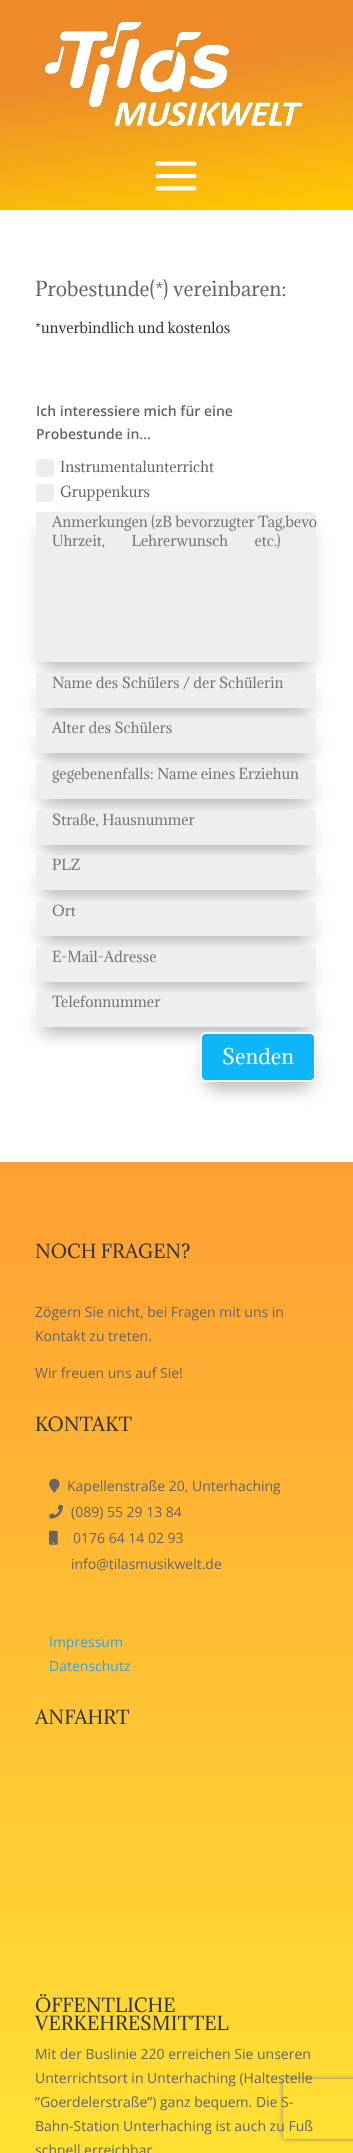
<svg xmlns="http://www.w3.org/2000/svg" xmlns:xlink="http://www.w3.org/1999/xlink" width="353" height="2153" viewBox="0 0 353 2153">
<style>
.cls-1{font:19px Adamina;fill:#666666}
.cls-2{font:14px Adamina;fill:#333333}
.cls-3{font:600 14px Open Sans;fill:#666666}
.cls-4{font:14px Adamina;fill:#666666}
.cls-5{font:14px Adamina;fill:#757575}
.cls-6{font:20px Adamina;fill:#ffffff}
.cls-7{font:18px Adamina;fill:#333333}
.cls-8{font:14px Open Sans;fill:#666666}
.cls-9{font:14px Open Sans;fill:#2ea3f2}
</style>
<defs>
<linearGradient id="g1" gradientUnits="userSpaceOnUse" x1="159" y1="-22" x2="194" y2="232"><stop offset="0.36" stop-color="#ed8b2a"/><stop offset="1" stop-color="#ffcc00"/></linearGradient>
<linearGradient id="g2" gradientUnits="userSpaceOnUse" x1="176" y1="1162" x2="177" y2="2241"><stop offset="0" stop-color="#ff9f33"/><stop offset="1" stop-color="#ffe735"/></linearGradient>
<clipPath id="clip1"><path d="M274 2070H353V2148H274ZM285 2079H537C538 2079 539 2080 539 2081V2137C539 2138 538 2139 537 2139H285C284 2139 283 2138 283 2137V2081C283 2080 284 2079 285 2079Z" clip-rule="evenodd"/></clipPath>
<clipPath id="clip2"><rect x="52" y="992" width="248" height="19"/></clipPath>
</defs>
<rect width="100%" height="100%" fill="#ffffff"/>
<rect fill="url(#g1)" x="0" y="0" width="353" height="210"/>
<image xlink:href="image0.png" x="45" y="21" width="258" height="105"/>
<image xlink:href="image1.png" x="155" y="161" width="42" height="30"/>
<rect fill="#eeeeee" x="36" y="459" width="18" height="18" rx="3"/>
<rect fill="#eeeeee" x="36" y="484" width="18" height="18" rx="3"/>
<rect fill="#000000" fill-opacity="0.3" filter="blur(9px)" x="42" y="530" width="268" height="138"/>
<rect fill="#eeeeee" x="36" y="512" width="280" height="150" rx="3"/>
<rect fill="#000000" fill-opacity="0.3" filter="blur(9px)" x="42" y="691" width="268" height="23"/>
<rect fill="#eeeeee" x="36" y="673" width="280" height="35" rx="3"/>
<rect fill="#000000" fill-opacity="0.3" filter="blur(9px)" x="42" y="736" width="268" height="23"/>
<rect fill="#eeeeee" x="36" y="718" width="280" height="35" rx="3"/>
<rect fill="#000000" fill-opacity="0.3" filter="blur(9px)" x="42" y="782" width="268" height="23"/>
<rect fill="#eeeeee" x="36" y="764" width="280" height="35" rx="3"/>
<rect fill="#000000" fill-opacity="0.3" filter="blur(9px)" x="42" y="828" width="268" height="23"/>
<rect fill="#eeeeee" x="36" y="810" width="280" height="35" rx="3"/>
<rect fill="#000000" fill-opacity="0.3" filter="blur(9px)" x="42" y="873" width="268" height="23"/>
<rect fill="#eeeeee" x="36" y="855" width="280" height="35" rx="3"/>
<rect fill="#000000" fill-opacity="0.3" filter="blur(9px)" x="42" y="919" width="268" height="23"/>
<rect fill="#eeeeee" x="36" y="901" width="280" height="35" rx="3"/>
<rect fill="#000000" fill-opacity="0.3" filter="blur(9px)" x="42" y="965" width="268" height="23"/>
<rect fill="#eeeeee" x="36" y="947" width="280" height="35" rx="3"/>
<rect fill="#000000" fill-opacity="0.3" filter="blur(9px)" x="42" y="1010" width="268" height="23"/>
<rect fill="#eeeeee" x="36" y="992" width="280" height="35" rx="3"/>
<rect fill="#000000" fill-opacity="0.3" filter="blur(9px)" x="206" y="1050" width="104" height="38"/>
<rect fill="#0eb5f7" stroke="#ffffff" stroke-width="2" x="201" y="1033" width="114" height="48" rx="5"/>
<rect fill="url(#g2)" x="0" y="1162" width="353" height="991"/>
<image xlink:href="image2.png" x="49" y="1478" width="11" height="15"/>
<image xlink:href="image3.png" x="49" y="1504" width="14" height="15"/>
<image xlink:href="image4.png" x="49" y="1530" width="9" height="15"/>
<g clip-path="url(#clip1)">
<rect fill="#808080" filter="blur(2.5px)" x="283" y="2079" width="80" height="60" rx="2"/>
</g>
<text class="cls-1" x="35" y="296">Probestunde(*) vereinbaren:</text>
<text class="cls-2" x="35" y="333">*unverbindlich und kostenlos</text>
<text class="cls-3"><tspan x="36" y="416">Ich interessiere mich für eine</tspan><tspan x="36" y="439">Probestunde in...</tspan></text>
<text class="cls-4"><tspan x="60" y="472">Instrumentalunterricht</tspan><tspan x="60" y="497">Gruppenkurs</tspan></text>
<text class="cls-5"><tspan x="52" y="527">Anmerkungen (zB bevorzugter Tag,bevo</tspan><tspan x="52" y="546" word-spacing="23">Uhrzeit, Lehrerwunsch etc.)</tspan></text>
<text class="cls-5" x="52" y="688">Name des Schülers / der Schülerin</text>
<text class="cls-5" x="52" y="733">Alter des Schülers</text>
<text class="cls-5" x="52" y="779">gegebenenfalls: Name eines Erziehun</text>
<text class="cls-5" x="52" y="825">Straße, Hausnummer</text>
<text class="cls-5" x="52" y="870">PLZ</text>
<text class="cls-5" x="52" y="916">Ort</text>
<text class="cls-5" x="52" y="962">E-Mail-Adresse</text>
<g clip-path="url(#clip2)">
<text class="cls-5" x="52" y="1007">Telefonnummer</text>
</g>
<text class="cls-6" x="222" y="1064">Senden</text>
<text class="cls-7" x="35" y="1258">NOCH FRAGEN?</text>
<text class="cls-8"><tspan x="35" y="1317">Zögern Sie nicht, bei Fragen mit uns in</tspan><tspan x="35" y="1341">Kontakt zu treten.</tspan></text>
<text class="cls-8" x="35" y="1378">Wir freuen uns auf Sie!</text>
<text class="cls-7" x="35" y="1431">KONTAKT</text>
<text class="cls-8" x="67" y="1491">Kapellenstraße 20, Unterhaching</text>
<text class="cls-8" x="71" y="1517">(089) 55 29 13 84</text>
<text class="cls-8" x="73" y="1543">0176 64 14 02 93</text>
<text class="cls-8" x="71" y="1569">info@tilasmusikwelt.de</text>
<text class="cls-9"><tspan x="49" y="1647">Impressum</tspan><tspan x="49" y="1671">Datenschutz</tspan></text>
<text class="cls-7" x="35" y="1724">ANFAHRT</text>
<text class="cls-7"><tspan x="35" y="2012">ÖFFENTLICHE</tspan><tspan x="35" y="2030">VERKEHRESMITTEL</tspan></text>
<text class="cls-8"><tspan x="35" y="2059">Mit der Buslinie 220 erreichen Sie unseren</tspan><tspan x="35" y="2083">Unterrichtsort in Unterhaching (Haltestelle</tspan><tspan x="35" y="2107">“Goerdelerstraße”) ganz bequem. Die S-</tspan><tspan x="35" y="2131">Bahn-Station Unterhaching ist auch zu Fuß</tspan><tspan x="35" y="2155">schnell erreichbar.</tspan></text>
</svg>
